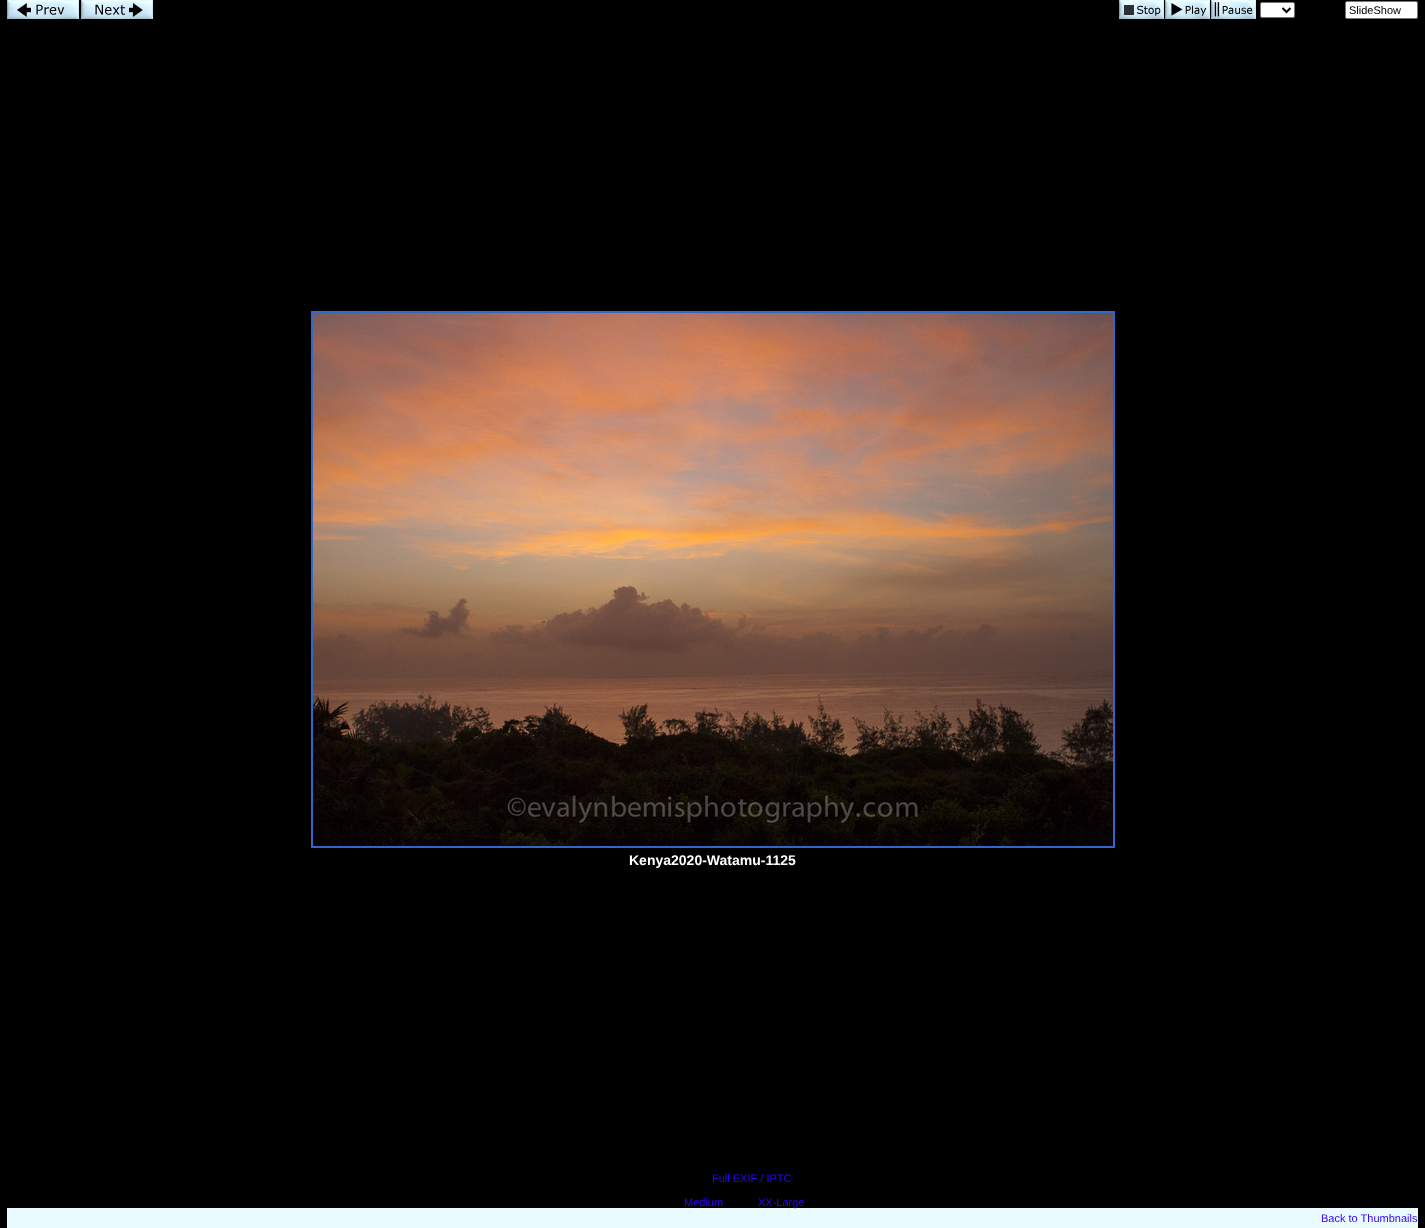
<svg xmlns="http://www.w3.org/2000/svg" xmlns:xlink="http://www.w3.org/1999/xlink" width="1425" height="1228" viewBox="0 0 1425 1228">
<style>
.cls-1{font:11px Liberation Sans;fill:#000000}
.cls-2{font:bold 14px Liberation Sans;fill:#ffffff}
.cls-3{font:11px Liberation Sans;fill:#3300ff}
</style>
<rect width="100%" height="100%" fill="#000000"/>
<image xlink:href="image0.png" x="7" y="0" width="72" height="19"/>
<image xlink:href="image1.png" x="81" y="0" width="72" height="19"/>
<image xlink:href="image2.png" x="1119" y="0" width="45" height="19"/>
<image xlink:href="image3.png" x="1165" y="0" width="45" height="19"/>
<image xlink:href="image4.png" x="1211" y="0" width="45" height="19"/>
<rect fill="#ffffff" stroke="#767676" x="1260.5" y="2.5" width="34" height="15" rx="1.5"/>
<path fill="none" stroke="#000000" stroke-width="2" d="M1282.5 8L1286.5 12L1290.5 8"/>
<rect fill="#ffffff" stroke="#767676" x="1345.5" y="1.5" width="72" height="17" rx="1.5"/>
<rect fill="none" stroke="#3366cc" stroke-width="2" x="312" y="312" width="802" height="535"/>
<image xlink:href="image5.png" x="313" y="313" width="800" height="533"/>
<rect fill="#eafcff" x="7" y="1208" width="1411" height="20"/>
<text class="cls-1" x="1349" y="14">SlideShow</text>
<text class="cls-2" x="629" y="865">Kenya2020-Watamu-1125</text>
<text class="cls-3" x="712" y="1182">Full EXIF / IPTC</text>
<text class="cls-3" x="684" y="1206">Medium</text>
<text class="cls-3" x="758" y="1206">XX-Large</text>
<text class="cls-3" x="1321" y="1222">Back to Thumbnails</text>
</svg>
